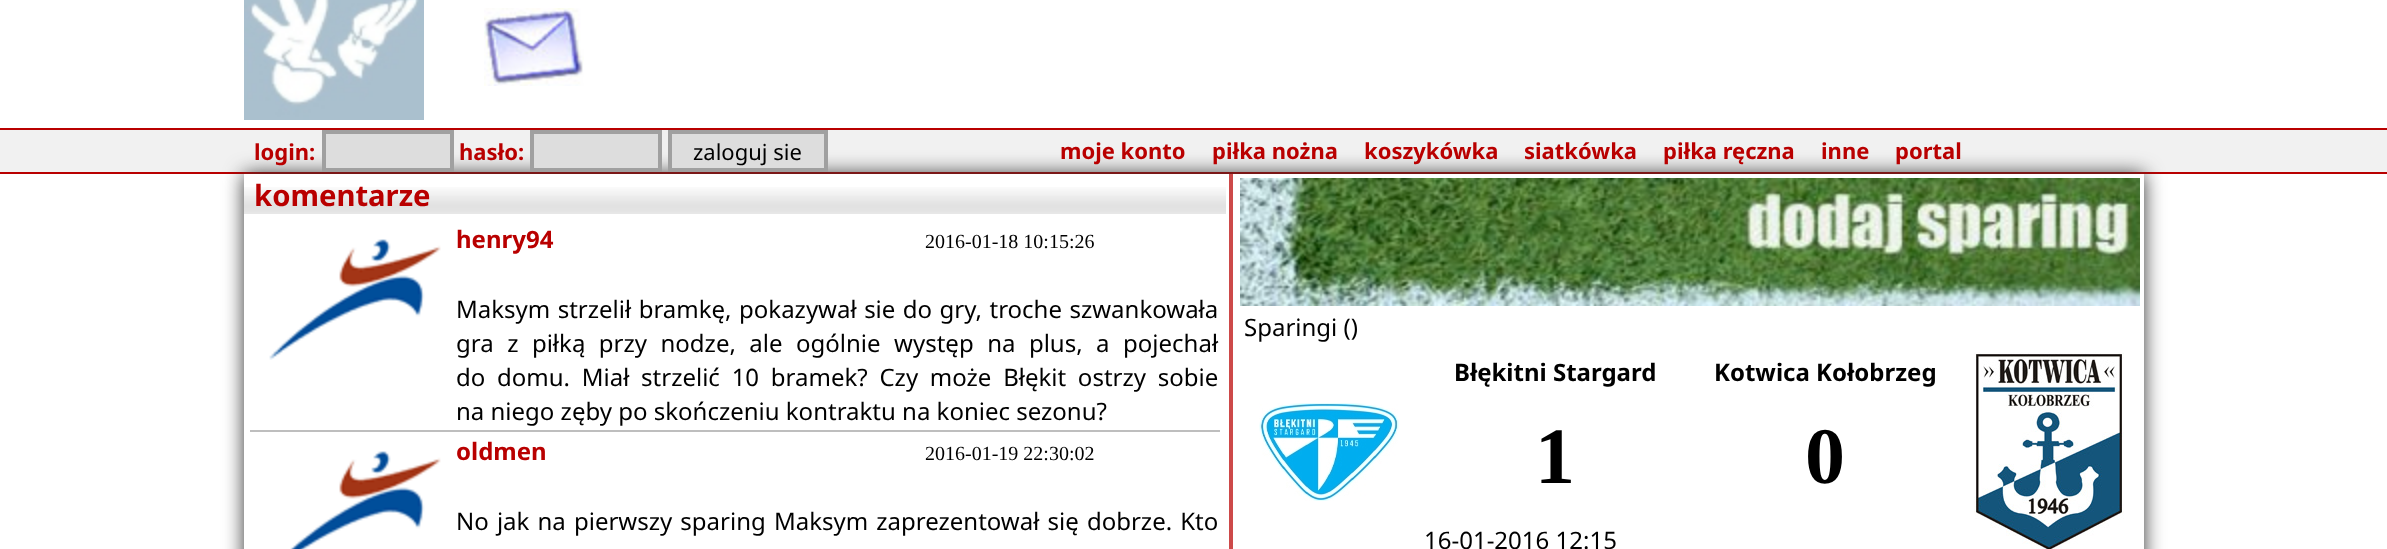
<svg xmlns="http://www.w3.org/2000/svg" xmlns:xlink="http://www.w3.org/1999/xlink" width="2387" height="549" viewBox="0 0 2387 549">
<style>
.cls-1{font:bold 22px Noto Sans;fill:#b90000}
.cls-2{font:22px Noto Sans;fill:#000000}
.cls-3{font:bold 29.25px Noto Sans;fill:#b90000}
.cls-4{font:bold 24px Noto Sans;fill:#b90000}
.cls-5{font:20px Liberation Serif;fill:#000000}
.cls-6{font:24px Noto Sans;fill:#000000}
.cls-7{font:bold 24px Noto Sans;fill:#000000}
.cls-8{font:bold 80px Liberation Serif;fill:#000000}
</style>
<defs>
<clipPath id="clip1"><path d="M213 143H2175V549H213ZM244 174H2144V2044H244Z" clip-rule="evenodd"/></clipPath>
</defs>
<rect width="100%" height="100%" fill="#ffffff"/>
<image xlink:href="image0.png" x="244" y="0" width="180" height="120"/>
<image xlink:href="image1.png" x="484" y="8" width="100" height="78"/>
<rect fill="#f1f1f1" x="0" y="130" width="2387" height="42"/>
<rect fill="#b90000" x="0" y="128" width="2387" height="2"/>
<rect fill="#b90000" x="0" y="172" width="2387" height="2"/>
<g clip-path="url(#clip1)">
<rect fill="#333333" filter="blur(10px)" x="244" y="174" width="1900" height="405"/>
</g>
<rect fill="#dddddd" stroke="#a0a0a0" stroke-width="4" x="324" y="132" width="128" height="38"/>
<rect fill="#dddddd" stroke="#a0a0a0" stroke-width="4" x="532" y="132" width="128" height="38"/>
<rect fill="#dddddd" stroke="#a0a0a0" stroke-width="4" x="670" y="132" width="156" height="38"/>
<image xlink:href="image2.png" x="244" y="187" width="982" height="27"/>
<rect fill="#bebebe" x="250" y="430" width="970" height="2"/>
<image xlink:href="image3.png" x="269" y="239" width="172" height="121"/>
<image xlink:href="image4.png" x="290" y="451" width="151" height="98"/>
<rect fill="#cd4949" x="1229" y="174" width="4" height="375"/>
<image xlink:href="image5.png" x="1240" y="178" width="900" height="128"/>
<image xlink:href="image6.png" x="1974" y="352" width="150" height="197"/>
<image xlink:href="image7.png" x="1259" y="403" width="140" height="98"/>
<text class="cls-1" x="254" y="160">login:</text>
<text class="cls-1" x="459" y="160">hasło:</text>
<text class="cls-2" x="693" y="160">zaloguj sie</text>
<text class="cls-1" x="1060" y="159">moje konto</text>
<text class="cls-1" x="1212" y="159">piłka nożna</text>
<text class="cls-1" x="1364" y="159">koszykówka</text>
<text class="cls-1" x="1524" y="159">siatkówka</text>
<text class="cls-1" x="1663" y="159">piłka ręczna</text>
<text class="cls-1" x="1821" y="159">inne</text>
<text class="cls-1" x="1895" y="159">portal</text>
<text class="cls-3" x="254" y="206">komentarze</text>
<text class="cls-4" x="456" y="248">henry94</text>
<text class="cls-5" x="925" y="248">2016-01-18 10:15:26</text>
<text class="cls-6"><tspan x="456" y="318" word-spacing="1.25">Maksym strzelił bramkę, pokazywał sie do gry, troche szwankowała</tspan><tspan x="456" y="352" word-spacing="7.25">gra z piłką przy nodze, ale ogólnie występ na plus, a pojechał</tspan><tspan x="456" y="386" word-spacing="5.5">do domu. Miał strzelić 10 bramek? Czy może Błękit ostrzy sobie</tspan><tspan x="456" y="420">na niego zęby po skończeniu kontraktu na koniec sezonu?</tspan></text>
<text class="cls-4" x="456" y="460">oldmen</text>
<text class="cls-5" x="925" y="460">2016-01-19 22:30:02</text>
<text class="cls-6" x="456" y="530" word-spacing="1.9">No jak na pierwszy sparing Maksym zaprezentował się dobrze. Kto</text>
<text class="cls-6" x="1244" y="336">Sparingi ()</text>
<text class="cls-7" x="1454" y="381">Błękitni Stargard</text>
<text class="cls-7" x="1714" y="381">Kotwica Kołobrzeg</text>
<text class="cls-8" x="1535" y="483">1</text>
<text class="cls-8" x="1805" y="483">0</text>
<text class="cls-6" x="1424" y="549">16-01-2016 12:15</text>
</svg>
